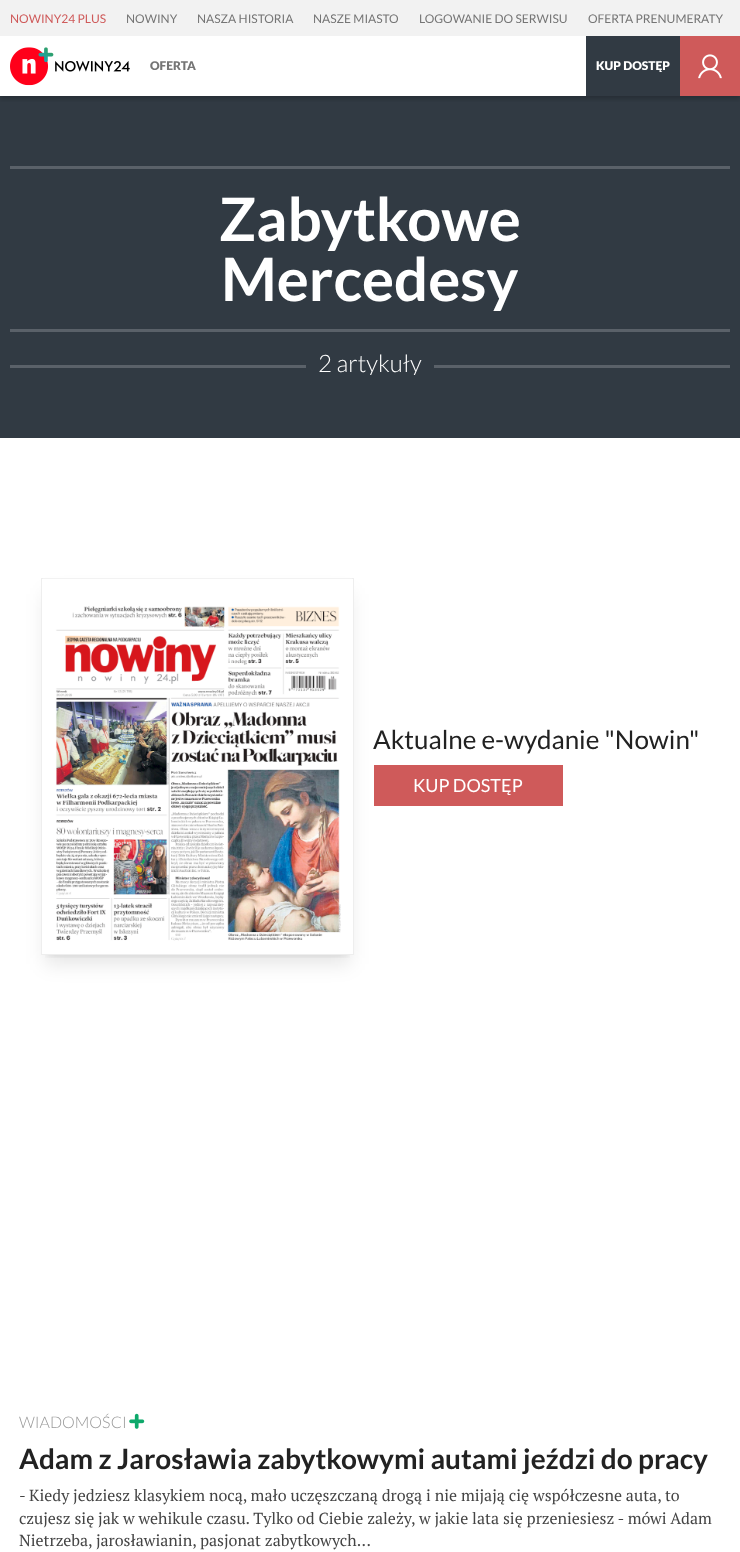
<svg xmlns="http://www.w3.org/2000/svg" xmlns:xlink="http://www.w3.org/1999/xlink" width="740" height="1552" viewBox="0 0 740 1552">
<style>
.cls-1{font:12px Lato;fill:#cf5a5a}
.cls-2{font:12px Lato;fill:#757575}
.cls-3{font:900 12px Lato;fill:#757575}
.cls-4{font:900 12px Lato;fill:#ffffff}
.cls-5{font:bold 60px Lato;fill:#ffffff}
.cls-6{font:300 24px Lato;fill:#ffffff}
.cls-7{font:26px Lato;fill:#222222}
.cls-8{font:18px Lato;fill:#ffffff}
.cls-9{font:300 16px Lato;fill:#999999}
.cls-10{font:bold 28px Lato;fill:#222222}
.cls-11{font:16px PT Serif;fill:#444444}
</style>
<defs>
<clipPath id="clip1"><rect x="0" y="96" width="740" height="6"/></clipPath>
<clipPath id="clip2"><rect x="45" y="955" width="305" height="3"/></clipPath>
<clipPath id="clip3"><path d="M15 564H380V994H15ZM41 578H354V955H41Z" clip-rule="evenodd"/></clipPath>
<clipPath id="clip4"><rect x="10" y="331" width="720" height="44"/></clipPath>
</defs>
<rect width="100%" height="100%" fill="#ffffff"/>
<rect fill="#f2f2f2" x="0" y="0" width="740" height="36"/>
<rect fill="#313a43" x="0" y="96" width="740" height="342"/>
<g clip-path="url(#clip1)">
<rect fill="#000000" fill-opacity="0.2" filter="blur(2px)" x="0" y="39" width="740" height="60"/>
</g>
<image xlink:href="image0.png" x="10" y="47" width="120" height="39"/>
<rect fill="#313a43" x="586" y="36" width="94" height="60"/>
<rect fill="#cf5a5a" x="680" y="36" width="60" height="60"/>
<image xlink:href="image1.png" x="698" y="54" width="24" height="25"/>
<rect fill="#5a6169" x="10" y="166" width="720" height="3"/>
<rect fill="#5a6169" x="10" y="329" width="720" height="3"/>
<rect fill="#5a6169" x="10" y="365" width="296" height="3"/>
<rect fill="#5a6169" x="434" y="365" width="296" height="3"/>
<g clip-path="url(#clip2)">
<rect fill="#000000" fill-opacity="0.1" filter="blur(4px)" x="46" y="588" width="303" height="367"/>
</g>
<g clip-path="url(#clip3)">
<rect fill="#000000" fill-opacity="0.1" filter="blur(9.5px)" x="45" y="594" width="305" height="370"/>
</g>
<rect fill="none" stroke="#eeeeee" x="41.5" y="578.5" width="312" height="376"/>
<image xlink:href="image2.png" x="43" y="578" width="309" height="363"/>
<rect fill="#cf5a5a" x="374" y="765" width="189" height="41"/>
<image xlink:href="image3.png" x="129" y="1413" width="16" height="16"/>
<text class="cls-1" x="10" y="23">NOWINY24 PLUS</text>
<text class="cls-2" x="126" y="23">NOWINY</text>
<text class="cls-2" x="197" y="23">NASZA HISTORIA</text>
<text class="cls-2" x="313" y="23">NASZE MIASTO</text>
<text class="cls-2" x="419" y="23">LOGOWANIE DO SERWISU</text>
<text class="cls-2" x="588" y="23">OFERTA PRENUMERATY</text>
<text class="cls-3" x="150" y="70">OFERTA</text>
<text class="cls-4" x="596" y="70">KUP DOSTĘP</text>
<text class="cls-5" x="219" y="241">Zabytkowe</text>
<text class="cls-5" x="221" y="301">Mercedesy</text>
<g clip-path="url(#clip4)">
<text class="cls-6" x="318" y="372">2 artykuły</text>
</g>
<text class="cls-7" x="373" y="749">Aktualne e-wydanie "Nowin"</text>
<text class="cls-8" x="413" y="792">KUP DOSTĘP</text>
<text class="cls-9" x="19" y="1428">WIADOMOŚCI</text>
<text class="cls-10" x="19" y="1469">Adam z Jarosławia zabytkowymi autami jeździ do pracy</text>
<text class="cls-11"><tspan x="19" y="1501">- Kiedy jedziesz klasykiem nocą, mało uczęszczaną drogą i nie mijają cię współczesne auta, to</tspan><tspan x="19" y="1524">czujesz się jak w wehikule czasu. Tylko od Ciebie zależy, w jakie lata się przeniesiesz - mówi Adam</tspan><tspan x="19" y="1546">Nietrzeba, jarosławianin, pasjonat zabytkowych...</tspan></text>
</svg>
